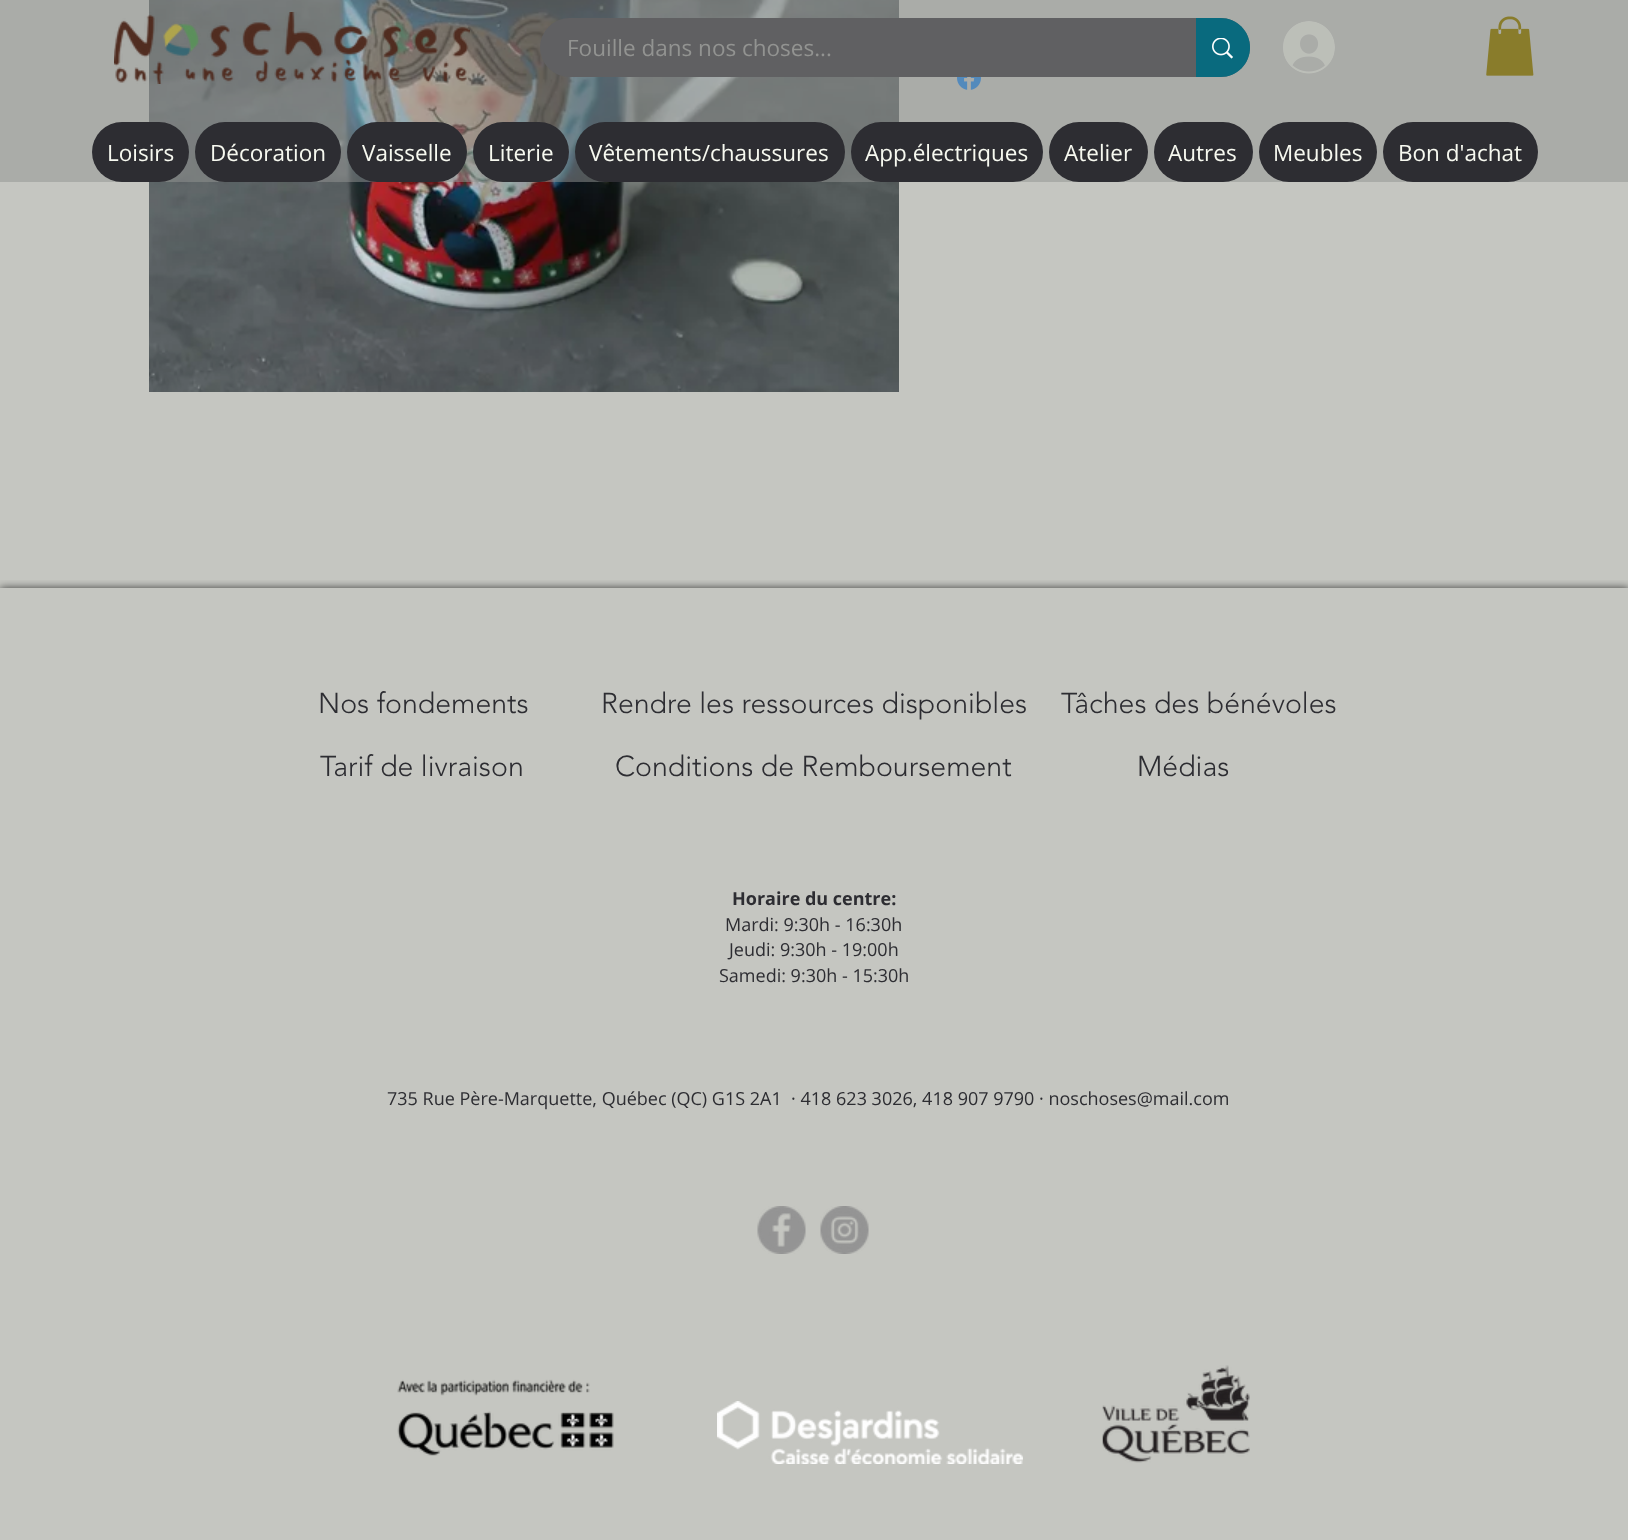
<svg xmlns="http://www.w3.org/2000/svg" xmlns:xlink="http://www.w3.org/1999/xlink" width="1628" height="1540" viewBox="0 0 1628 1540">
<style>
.cls-1{font:22.5px Open Sans;fill:#929391}
.cls-2{font:22.5px Open Sans;fill:#f7f9f0}
.cls-3{font:300 28.5px 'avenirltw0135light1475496';fill:#2d2d32}
.cls-4{font:bold 18px Open Sans;fill:#2d2d32}
.cls-5{font:18px Open Sans;fill:#2d2d32}
</style>
<defs>
<clipPath id="clip1"><rect x="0" y="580" width="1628" height="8"/></clipPath>
</defs>
<rect width="100%" height="100%" fill="#c5c6c1"/>
<image xlink:href="image0.png" x="149" y="0" width="750" height="392"/>
<image xlink:href="image1.png" x="957" y="77" width="24" height="13"/>
<rect fill="#929391" fill-opacity="0.52" x="0" y="0" width="1628" height="182"/>
<image xlink:href="image2.png" x="114" y="12" width="356" height="72"/>
<rect fill="#606062" x="540" y="18" width="710" height="59" rx="29.5"/>
<path fill="#096a7e" d="M1196 18H1220.5C1237 18 1250 31 1250 47.5C1250 64 1237 77 1220.5 77H1196Z"/>
<image xlink:href="image3.png" x="1212" y="38" width="21" height="21"/>
<image xlink:href="image4.png" x="1283" y="21" width="52" height="53"/>
<image xlink:href="image5.png" x="1486" y="16" width="48" height="60"/>
<rect fill="#2d2d32" x="92" y="122" width="97" height="60" rx="30"/>
<rect fill="#2d2d32" x="195" y="122" width="146" height="60" rx="30"/>
<rect fill="#2d2d32" x="347" y="122" width="120" height="60" rx="30"/>
<rect fill="#2d2d32" x="473" y="122" width="96" height="60" rx="30"/>
<rect fill="#2d2d32" x="575" y="122" width="270" height="60" rx="30"/>
<rect fill="#2d2d32" x="851" y="122" width="192" height="60" rx="30"/>
<rect fill="#2d2d32" x="1049" y="122" width="99" height="60" rx="30"/>
<rect fill="#2d2d32" x="1154" y="122" width="99" height="60" rx="30"/>
<rect fill="#2d2d32" x="1259" y="122" width="118" height="60" rx="30"/>
<rect fill="#2d2d32" x="1383" y="122" width="155" height="60" rx="30"/>
<g clip-path="url(#clip1)">
<rect fill="#000000" fill-opacity="0.7" filter="blur(4px)" x="0" y="588" width="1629" height="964"/>
</g>
<image xlink:href="image6.png" x="757" y="1206" width="49" height="48"/>
<image xlink:href="image7.png" x="820" y="1206" width="49" height="48"/>
<image xlink:href="image8.png" x="397" y="1379" width="217" height="77"/>
<image xlink:href="image9.png" x="717" y="1401" width="306" height="63"/>
<image xlink:href="image10.png" x="1102" y="1365" width="148" height="98"/>
<text class="cls-1" x="567" y="56">Fouille dans nos choses...</text>
<text class="cls-2" x="107" y="161">Loisirs</text>
<text class="cls-2" x="210" y="161">Décoration</text>
<text class="cls-2" x="362" y="161">Vaisselle</text>
<text class="cls-2" x="488" y="161">Literie</text>
<text class="cls-2" x="589" y="161">Vêtements/chaussures</text>
<text class="cls-2" x="865" y="161">App.électriques</text>
<text class="cls-2" x="1064" y="161">Atelier</text>
<text class="cls-2" x="1168" y="161">Autres</text>
<text class="cls-2" x="1273" y="161">Meubles</text>
<text class="cls-2" x="1398" y="161">Bon d'achat</text>
<text class="cls-3" x="318" y="713">Nos fondements</text>
<text class="cls-3" x="601" y="713">Rendre les ressources disponibles</text>
<text class="cls-3" x="1061" y="713">Tâches des bénévoles</text>
<text class="cls-3" x="320" y="776">Tarif de livraison</text>
<text class="cls-3" x="615" y="776">Conditions de Remboursement</text>
<text class="cls-3" x="1137" y="776">Médias</text>
<text class="cls-4" x="732" y="905">Horaire du centre:</text>
<text class="cls-5" x="725" y="931">Mardi: 9:30h - 16:30h</text>
<text class="cls-5" x="729" y="956">Jeudi: 9:30h - 19:00h</text>
<text class="cls-5" x="719" y="982">Samedi: 9:30h - 15:30h</text>
<text class="cls-5" xml:space="preserve" x="387" y="1105">735 Rue Père-Marquette, Québec (QC) G1S 2A1  · 418 623 3026, 418 907 9790 · noschoses@mail.com</text>
</svg>
